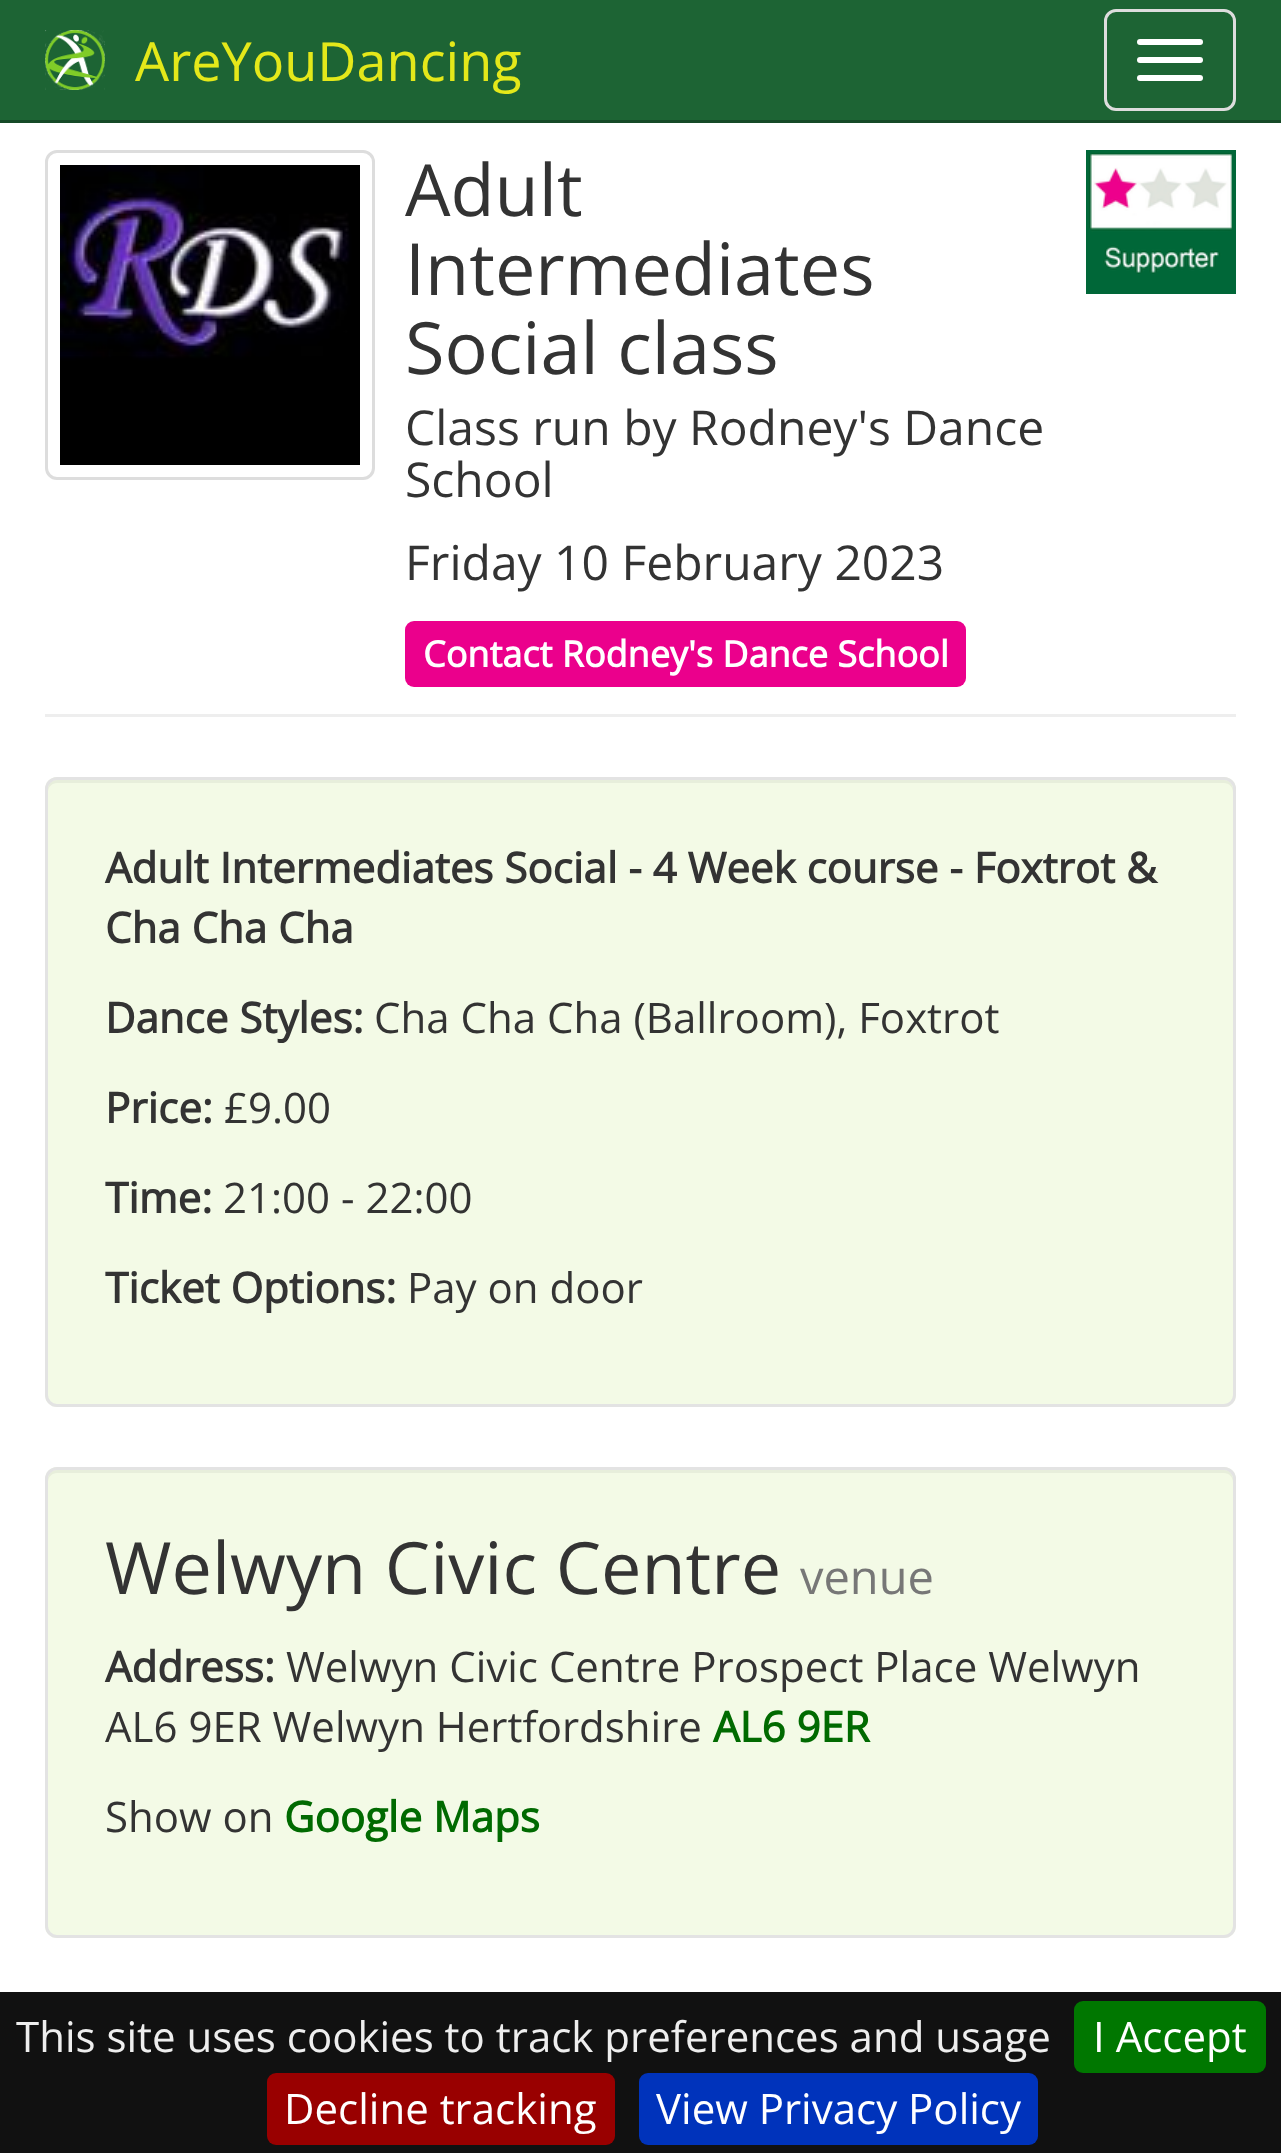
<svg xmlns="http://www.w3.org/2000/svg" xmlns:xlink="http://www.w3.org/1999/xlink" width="1281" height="2153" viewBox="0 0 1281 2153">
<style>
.cls-1{font:54px Open Sans;fill:#e4e81a}
.cls-2{font:72px Open Sans;fill:#333333}
.cls-3{font:48px Open Sans;fill:#333333}
.cls-4{font:bold 36px Open Sans;fill:#ffffff}
.cls-5{font:bold 42px Open Sans;fill:#333333}
.cls-6{font:42px Open Sans;fill:#333333}
.cls-7{font:47px Open Sans;fill:#777777}
.cls-8{font:bold 42px Open Sans;fill:#006a00}
.cls-9{font:42px Open Sans;fill:#eeeeee}
.cls-10{font:42px Open Sans;fill:#ffffff}
</style>
<rect width="100%" height="100%" fill="#ffffff"/>
<rect fill="#1d6434" x="0" y="0" width="1281" height="120"/>
<rect fill="#164a27" x="0" y="120" width="1281" height="3"/>
<image xlink:href="image0.png" x="45" y="30" width="60" height="60"/>
<rect fill="none" stroke="#dddddd" stroke-width="3" x="1105.5" y="10.5" width="129" height="99" rx="10.5"/>
<rect fill="#ffffff" x="1137" y="39" width="66" height="6" rx="3"/>
<rect fill="#ffffff" x="1137" y="57" width="66" height="6" rx="3"/>
<rect fill="#ffffff" x="1137" y="75" width="66" height="6" rx="3"/>
<rect fill="#eeeeee" x="45" y="714" width="1191" height="3"/>
<rect fill="none" stroke="#dddddd" stroke-width="3" x="46.5" y="151.5" width="327" height="327" rx="10.5"/>
<image xlink:href="image1.png" x="60" y="165" width="300" height="300"/>
<rect fill="#eb008c" x="405" y="621" width="561" height="66" rx="9"/>
<image xlink:href="image2.png" x="1086" y="150" width="150" height="144"/>
<rect fill="#f3fae6" x="45" y="777" width="1191" height="630" rx="12"/>
<path fill="#e7eedb" d="M57 783H1224C1229 783 1233 787 1233 792V789C1233 784 1229 780 1224 780H57C52 780 48 784 48 789V792C48 787 52 783 57 783Z"/>
<rect fill="none" stroke="#e3e3e3" stroke-width="3" x="46.5" y="778.5" width="1188" height="627" rx="10.5"/>
<rect fill="#f3fae6" x="45" y="1467" width="1191" height="471" rx="12"/>
<path fill="#e7eedb" d="M57 1473H1224C1229 1473 1233 1477 1233 1482V1479C1233 1474 1229 1470 1224 1470H57C52 1470 48 1474 48 1479V1482C48 1477 52 1473 57 1473Z"/>
<rect fill="none" stroke="#e3e3e3" stroke-width="3" x="46.5" y="1468.5" width="1188" height="468" rx="10.5"/>
<rect fill="#111111" x="0" y="1992" width="1281" height="161"/>
<rect fill="#007700" x="1074" y="2001" width="192" height="72" rx="9"/>
<rect fill="#990000" x="267" y="2073" width="348" height="72" rx="9"/>
<rect fill="#0033bb" x="639" y="2073" width="399" height="72" rx="9"/>
<text class="cls-1" x="135" y="81">AreYouDancing</text>
<text class="cls-2"><tspan x="405" y="216">Adult</tspan><tspan x="405" y="295">Intermediates</tspan><tspan x="405" y="374">Social class</tspan></text>
<text class="cls-3"><tspan x="405" y="445">Class run by Rodney's Dance</tspan><tspan x="405" y="497">School</tspan><tspan x="405" y="580">Friday 10 February 2023</tspan></text>
<text class="cls-4" x="423" y="667">Contact Rodney's Dance School</text>
<text class="cls-5"><tspan x="105" y="883">Adult Intermediates Social - 4 Week course - Foxtrot &amp;</tspan><tspan x="105" y="943">Cha Cha Cha</tspan></text>
<text class="cls-5" x="105" y="1033">Dance Styles:</text>
<text class="cls-6" x="374" y="1033">Cha Cha Cha (Ballroom), Foxtrot</text>
<text class="cls-5" x="105" y="1123">Price:</text>
<text class="cls-6" x="224" y="1123">£9.00</text>
<text class="cls-5" x="105" y="1213">Time:</text>
<text class="cls-6" x="223" y="1213">21:00 - 22:00</text>
<text class="cls-5" x="105" y="1303">Ticket Options:</text>
<text class="cls-6" x="407" y="1303">Pay on door</text>
<text class="cls-2" x="105" y="1594">Welwyn Civic Centre</text>
<text class="cls-7" x="800" y="1594">venue</text>
<text class="cls-5" x="105" y="1682">Address:</text>
<text class="cls-6" x="286" y="1682">Welwyn Civic Centre Prospect Place Welwyn</text>
<text class="cls-6" x="105" y="1742">AL6 9ER Welwyn Hertfordshire</text>
<text class="cls-8" x="713" y="1742">AL6 9ER</text>
<text class="cls-6" x="105" y="1832">Show on</text>
<text class="cls-8" x="284" y="1832">Google Maps</text>
<text class="cls-9" x="16" y="2052">This site uses cookies to track preferences and usage</text>
<text class="cls-10" x="1093" y="2052">I Accept</text>
<text class="cls-10" x="284" y="2124">Decline tracking</text>
<text class="cls-10" x="656" y="2124">View Privacy Policy</text>
</svg>
